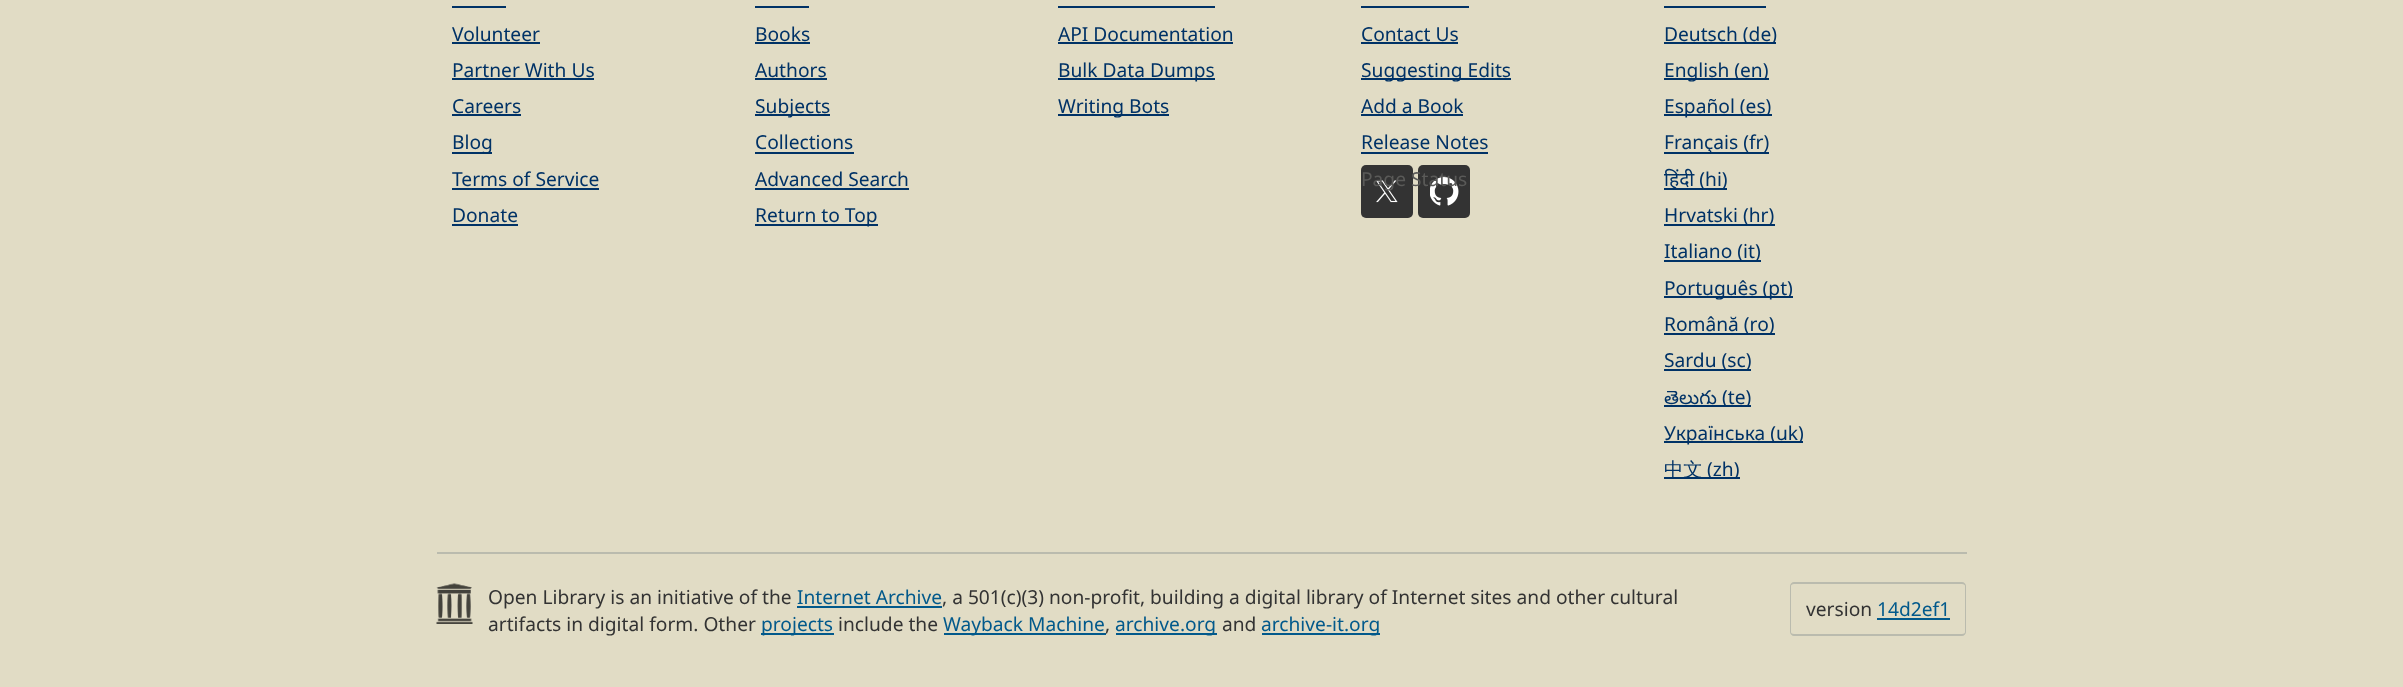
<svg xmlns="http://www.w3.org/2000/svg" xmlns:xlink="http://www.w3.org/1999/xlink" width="2403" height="687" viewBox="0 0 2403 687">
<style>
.cls-1{font:19.2px Noto Sans;fill:#003266}
.cls-2{font:19.2px Noto Sans;fill:#5a5a58}
.cls-3{font:19.2px Noto Sans Telugu;fill:#003266}
.cls-4{font:500 19.2px WenQuanYi Zen Hei;fill:#003266}
.cls-5{font:19.2px Noto Sans;fill:#333333}
.cls-6{font:19.2px Noto Sans;fill:#02598b}
</style>
<rect width="100%" height="100%" fill="#e1dcc5"/>
<rect fill="#003266" x="452" y="6" width="54" height="2"/>
<rect fill="#003266" x="452" y="42" width="88" height="2"/>
<rect fill="#003266" x="452" y="78" width="142" height="2"/>
<rect fill="#003266" x="452" y="114" width="69" height="2"/>
<rect fill="#003266" x="452" y="152" width="40" height="2"/>
<rect fill="#003266" x="452" y="188" width="147" height="2"/>
<rect fill="#003266" x="452" y="224" width="66" height="2"/>
<rect fill="#003266" x="755" y="6" width="54" height="2"/>
<rect fill="#003266" x="755" y="42" width="55" height="2"/>
<rect fill="#003266" x="755" y="78" width="72" height="2"/>
<rect fill="#003266" x="755" y="114" width="75" height="2"/>
<rect fill="#003266" x="755" y="152" width="99" height="2"/>
<rect fill="#003266" x="755" y="188" width="154" height="2"/>
<rect fill="#003266" x="755" y="224" width="123" height="2"/>
<rect fill="#003266" x="1058" y="6" width="157" height="2"/>
<rect fill="#003266" x="1058" y="42" width="175" height="2"/>
<rect fill="#003266" x="1058" y="78" width="157" height="2"/>
<rect fill="#003266" x="1058" y="114" width="111" height="2"/>
<rect fill="#003266" x="1361" y="6" width="108" height="2"/>
<rect fill="#003266" x="1361" y="42" width="97" height="2"/>
<rect fill="#003266" x="1361" y="78" width="150" height="2"/>
<rect fill="#003266" x="1361" y="114" width="102" height="2"/>
<rect fill="#003266" x="1361" y="152" width="127" height="2"/>
<rect fill="#333333" x="1361" y="165" width="52" height="53" rx="5"/>
<image xlink:href="image0.png" x="1376" y="180" width="22" height="23"/>
<rect fill="#333333" x="1418" y="165" width="52" height="53" rx="5"/>
<image xlink:href="image1.png" x="1430" y="177" width="29" height="29"/>
<rect fill="#003266" x="1664" y="6" width="102" height="2"/>
<rect fill="#003266" x="1664" y="42" width="112" height="2"/>
<rect fill="#003266" x="1664" y="78" width="105" height="2"/>
<rect fill="#003266" x="1664" y="114" width="108" height="2"/>
<rect fill="#003266" x="1664" y="152" width="105" height="2"/>
<rect fill="#003266" x="1664" y="188" width="63" height="2"/>
<rect fill="#003266" x="1664" y="224" width="111" height="2"/>
<rect fill="#003266" x="1664" y="260" width="97" height="2"/>
<rect fill="#003266" x="1664" y="296" width="129" height="2"/>
<rect fill="#003266" x="1664" y="333" width="111" height="2"/>
<rect fill="#003266" x="1664" y="369" width="87" height="2"/>
<rect fill="#003266" x="1664" y="405" width="87" height="2"/>
<rect fill="#003266" x="1664" y="441" width="139" height="2"/>
<rect fill="#003266" x="1664" y="477" width="76" height="2"/>
<rect fill="#babbae" x="437" y="552" width="1530" height="2"/>
<image xlink:href="image2.png" x="436" y="583" width="37" height="41"/>
<rect fill="#02598b" x="797" y="606" width="145" height="2"/>
<rect fill="#02598b" x="761" y="633" width="73" height="2"/>
<rect fill="#02598b" x="944" y="633" width="162" height="2"/>
<rect fill="#02598b" x="1116" y="633" width="101" height="2"/>
<rect fill="#02598b" x="1262" y="633" width="118" height="2"/>
<path fill="#babbae" fill-rule="evenodd" d="M1794 582H1876V636H1794C1792 636 1790 634 1790 632V586C1790 584 1792 582 1794 582ZM1794 584H1876V634H1794C1792 634 1791 633 1791 632V586C1791 585 1792 584 1794 584Z"/>
<path fill="#babbae" fill-rule="evenodd" d="M1876 582H1962C1964 582 1966 584 1966 586V632C1966 634 1964 636 1962 636H1876ZM1876 584H1962C1964 584 1965 585 1965 586V632C1965 633 1964 634 1962 634H1876Z"/>
<rect fill="#02598b" x="1877" y="618" width="73" height="2"/>
<text class="cls-1"><tspan x="452" y="41">Volunteer</tspan><tspan x="452" y="77">Partner With Us</tspan><tspan x="452" y="113">Careers</tspan><tspan x="452" y="149">Blog</tspan><tspan x="452" y="186">Terms of Service</tspan><tspan x="452" y="222">Donate</tspan></text>
<text class="cls-1"><tspan x="755" y="41">Books</tspan><tspan x="755" y="77">Authors</tspan><tspan x="755" y="113">Subjects</tspan><tspan x="755" y="149">Collections</tspan><tspan x="755" y="186">Advanced Search</tspan><tspan x="755" y="222">Return to Top</tspan></text>
<text class="cls-1"><tspan x="1058" y="41">API Documentation</tspan><tspan x="1058" y="77">Bulk Data Dumps</tspan><tspan x="1058" y="113">Writing Bots</tspan></text>
<text class="cls-1"><tspan x="1361" y="41">Contact Us</tspan><tspan x="1361" y="77">Suggesting Edits</tspan><tspan x="1361" y="113">Add a Book</tspan><tspan x="1361" y="149">Release Notes</tspan></text>
<text class="cls-2" x="1361" y="186">Page Status</text>
<text class="cls-1"><tspan x="1664" y="41">Deutsch (de)</tspan><tspan x="1664" y="77">English (en)</tspan><tspan x="1664" y="113">Español (es)</tspan><tspan x="1664" y="149">Français (fr)</tspan><tspan x="1664" y="186">हिंदी (hi)</tspan><tspan x="1664" y="222">Hrvatski (hr)</tspan><tspan x="1664" y="258">Italiano (it)</tspan><tspan x="1664" y="295">Português (pt)</tspan><tspan x="1664" y="331">Română (ro)</tspan><tspan x="1664" y="367">Sardu (sc)</tspan></text>
<text class="cls-3" x="1664" y="404">తెలుగు</text>
<text class="cls-1" x="1722" y="404">(te)</text>
<text class="cls-1" x="1664" y="440">Українська (uk)</text>
<text class="cls-4" x="1664" y="476">中文</text>
<text class="cls-1" x="1707" y="476">(zh)</text>
<text class="cls-5" x="488" y="604">Open Library is an initiative of the</text>
<text class="cls-6" x="797" y="604">Internet Archive</text>
<text class="cls-5" x="942" y="604">, a 501(c)(3) non-profit, building a digital library of Internet sites and other cultural</text>
<text class="cls-5" x="488" y="631">artifacts in digital form. Other</text>
<text class="cls-6" x="761" y="631">projects</text>
<text class="cls-5" x="838" y="631">include the</text>
<text class="cls-6" x="943" y="631">Wayback Machine</text>
<text class="cls-5" x="1105" y="631">,</text>
<text class="cls-6" x="1115" y="631">archive.org</text>
<text class="cls-5" x="1222" y="631">and</text>
<text class="cls-6" x="1261" y="631">archive-it.org</text>
<text class="cls-5" x="1806" y="616">version</text>
<text class="cls-6" x="1877" y="616">14d2ef1</text>
</svg>
